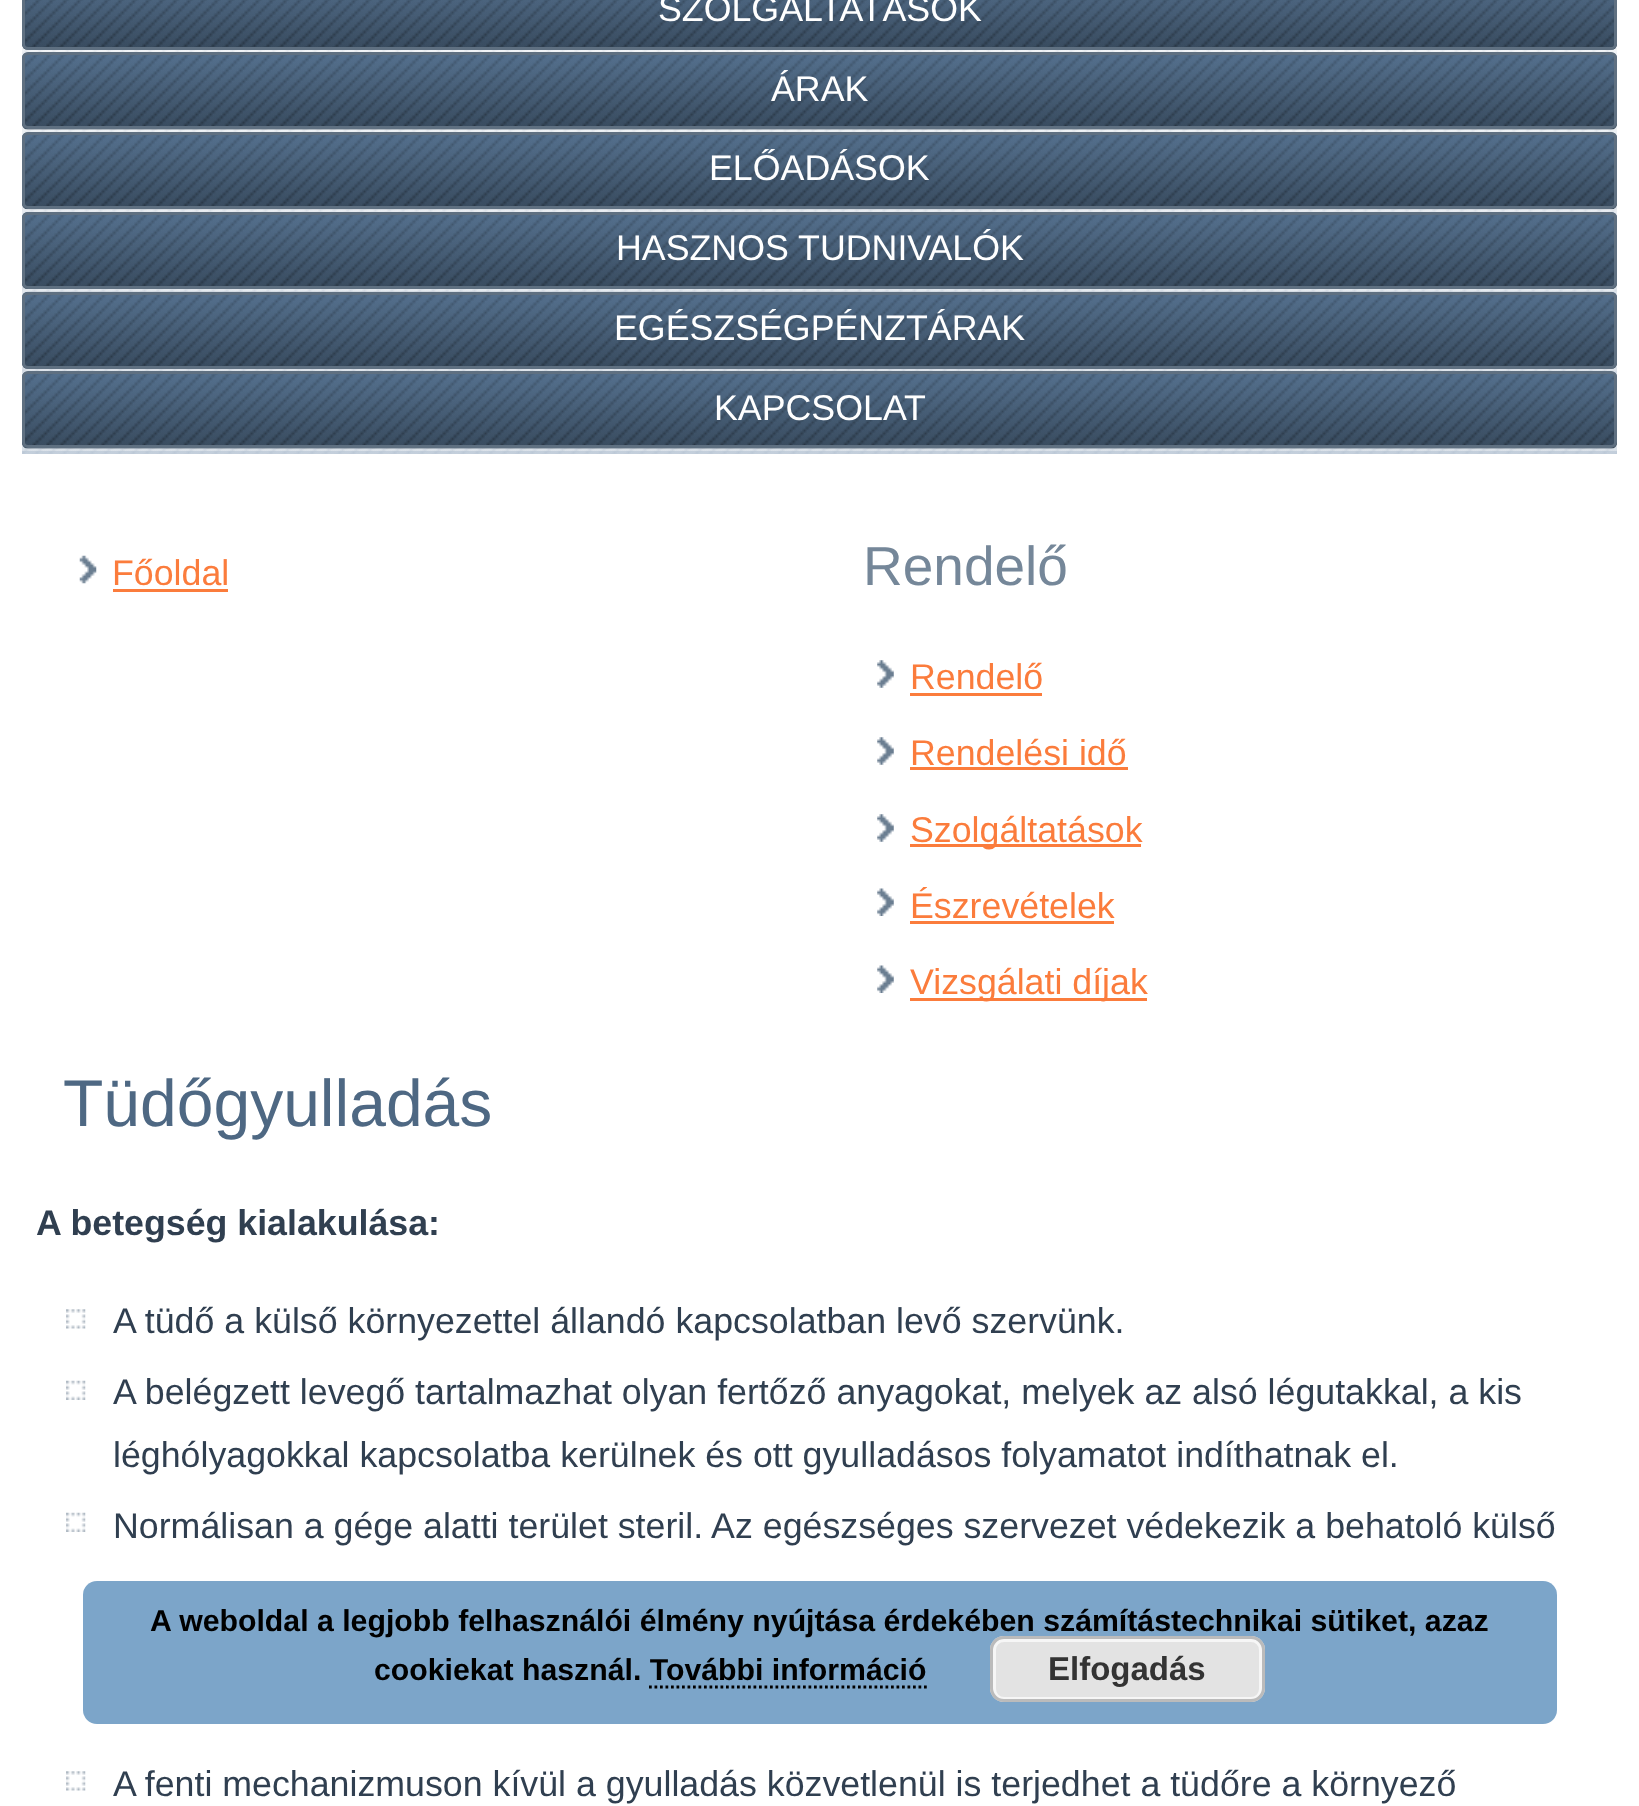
<svg xmlns="http://www.w3.org/2000/svg" xmlns:xlink="http://www.w3.org/1999/xlink" width="1639" height="1806" viewBox="0 0 1639 1806">
<style>
.cls-1{font:35.75px Liberation Sans;fill:#ffffff}
.cls-2{font:35.75px Liberation Sans;fill:#fb7c3c}
.cls-3{font:55px Liberation Sans;fill:#758799}
.cls-4{font:66px Liberation Sans;fill:#4e6883}
.cls-5{font:bold 35.75px Liberation Sans;fill:#303f50}
.cls-6{font:35.75px Liberation Sans;fill:#303f50}
.cls-7{font:bold 30.25px Liberation Sans;fill:#000000}
.cls-8{font:bold 33px Liberation Sans;fill:#333333}
</style>
<rect width="100%" height="100%" fill="#ffffff"/>
<image xlink:href="image0.png" x="22" y="45" width="1595" height="409"/>
<rect fill="#a3b4c8" fill-opacity="0.4" x="22" y="451" width="1595" height="3"/>
<image xlink:href="image1.png" x="22" y="0" width="1595" height="50"/>
<rect fill="none" stroke="#5f7081" stroke-width="3" x="23.5" y="-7.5" width="1592" height="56" rx="4.5"/>
<image xlink:href="image2.png" x="22" y="52" width="1595" height="78"/>
<rect fill="none" stroke="#5f7081" stroke-width="3" x="23.5" y="53.5" width="1592" height="74" rx="4.5"/>
<image xlink:href="image3.png" x="22" y="132" width="1595" height="78"/>
<rect fill="none" stroke="#5f7081" stroke-width="3" x="23.5" y="133.5" width="1592" height="74" rx="4.5"/>
<image xlink:href="image4.png" x="22" y="212" width="1595" height="77"/>
<rect fill="none" stroke="#5f7081" stroke-width="3" x="23.5" y="213.5" width="1592" height="74" rx="4.5"/>
<image xlink:href="image5.png" x="22" y="291" width="1595" height="78"/>
<rect fill="none" stroke="#5f7081" stroke-width="3" x="23.5" y="293.5" width="1592" height="74" rx="4.5"/>
<image xlink:href="image6.png" x="22" y="371" width="1595" height="78"/>
<rect fill="none" stroke="#5f7081" stroke-width="3" x="23.5" y="372.5" width="1592" height="74" rx="4.5"/>
<image xlink:href="image7.png" x="79" y="555" width="18" height="29"/>
<rect fill="#fb7c3c" x="113" y="589" width="115" height="3"/>
<image xlink:href="image8.png" x="877" y="660" width="17" height="28"/>
<rect fill="#fb7c3c" x="910" y="693" width="132" height="3"/>
<image xlink:href="image8.png" x="877" y="737" width="17" height="28"/>
<rect fill="#fb7c3c" x="910" y="767" width="218" height="3"/>
<image xlink:href="image8.png" x="877" y="814" width="17" height="28"/>
<rect fill="#fb7c3c" x="910" y="844" width="231" height="3"/>
<image xlink:href="image9.png" x="877" y="888" width="17" height="28"/>
<rect fill="#fb7c3c" x="910" y="921" width="204" height="3"/>
<image xlink:href="image10.png" x="877" y="965" width="17" height="28"/>
<rect fill="#fb7c3c" x="910" y="998" width="237" height="3"/>
<image xlink:href="image11.png" x="66" y="1309" width="20" height="20"/>
<image xlink:href="image12.png" x="66" y="1380" width="20" height="20"/>
<image xlink:href="image12.png" x="66" y="1512" width="20" height="20"/>
<image xlink:href="image11.png" x="66" y="1771" width="20" height="20"/>
<rect fill="#6595bf" fill-opacity="0.85" x="83" y="1581" width="1474" height="143" rx="14"/>
<path fill="none" stroke="#000000" stroke-width="2.8" stroke-dasharray="2.75 2.75" d="M649 1687H927"/>
<text class="cls-1" x="658" y="21">SZOLGÁLTATÁSOK</text>
<text class="cls-1" x="771" y="101">ÁRAK</text>
<text class="cls-1" x="709" y="180">ELŐADÁSOK</text>
<text class="cls-1" x="616" y="260">HASZNOS TUDNIVALÓK</text>
<text class="cls-1" x="614" y="340">EGÉSZSÉGPÉNZTÁRAK</text>
<text class="cls-1" x="714" y="420">KAPCSOLAT</text>
<text class="cls-2" x="112" y="585">Főoldal</text>
<text class="cls-3" x="863" y="585">Rendelő</text>
<text class="cls-2" x="910" y="689">Rendelő</text>
<text class="cls-2" x="910" y="765">Rendelési idő</text>
<text class="cls-2" x="910" y="842">Szolgáltatások</text>
<text class="cls-2" x="910" y="918">Észrevételek</text>
<text class="cls-2" x="910" y="994">Vizsgálati díjak</text>
<text class="cls-4" x="63" y="1126">Tüdőgyulladás</text>
<text class="cls-5" x="36" y="1235">A betegség kialakulása:</text>
<text class="cls-6"><tspan x="113" y="1333">A tüdő a külső környezettel állandó kapcsolatban levő szervünk.</tspan><tspan x="113" y="1404">A belégzett levegő tartalmazhat olyan fertőző anyagokat, melyek az alsó légutakkal, a kis</tspan><tspan x="113" y="1467">léghólyagokkal kapcsolatba kerülnek és ott gyulladásos folyamatot indíthatnak el.</tspan><tspan x="113" y="1538">Normálisan a gége alatti terület steril. Az egészséges szervezet védekezik a behatoló külső</tspan></text>
<text class="cls-6" x="113" y="1796">A fenti mechanizmuson kívül a gyulladás közvetlenül is terjedhet a tüdőre a környező</text>
<text class="cls-7" x="150" y="1631">A weboldal a legjobb felhasználói élmény nyújtása érdekében számítástechnikai sütiket, azaz</text>
<text class="cls-7" x="374" y="1680">cookiekat használ. További információ</text>
<rect fill="#e3e3e3" x="990" y="1636" width="275" height="66" rx="14"/>
<rect fill="none" stroke="#f6f6f6" stroke-width="3" x="994.5" y="1640.5" width="266" height="58" rx="9.5"/>
<rect fill="none" stroke="#bbbbbb" stroke-width="3" x="991.5" y="1637.5" width="272" height="63" rx="12.5"/>
<text class="cls-8" x="1048" y="1680">Elfogadás</text>
</svg>
